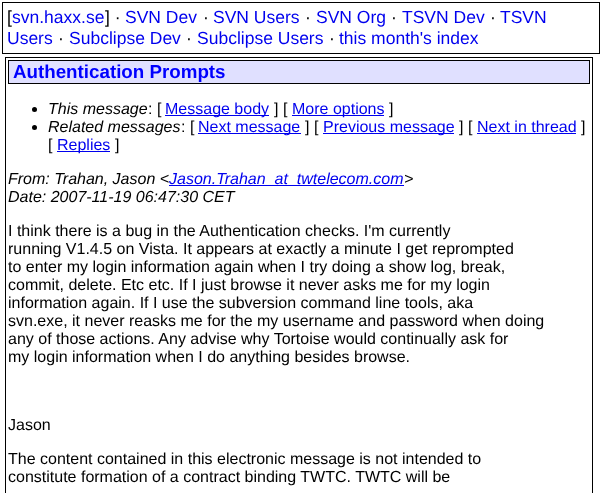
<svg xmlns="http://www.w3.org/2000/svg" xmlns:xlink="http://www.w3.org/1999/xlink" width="602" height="493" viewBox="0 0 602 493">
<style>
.cls-1{font:17.5px Liberation Sans;fill:#000000}
.cls-2{font:17.5px Liberation Sans;fill:#0000ee}
.cls-3{font:bold 18.75px Liberation Sans;fill:#0000ff}
.cls-4{font:italic 16px Liberation Sans;fill:#000000}
.cls-5{font:16px Liberation Sans;fill:#000000}
.cls-6{font:16px Liberation Sans;fill:#0000ee}
.cls-7{font:italic 16px Liberation Sans;fill:#0000ee}
</style>
<rect width="100%" height="100%" fill="#ffffff"/>
<rect fill="none" stroke="#000000" x="2.5" y="2.5" width="597" height="51"/>
<rect fill="none" stroke="#000000" x="5.5" y="57.5" width="587" height="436"/>
<rect fill="#e0e0ff" stroke="#000000" x="8.5" y="60.5" width="581" height="23"/>
<circle fill="#000000" cx="34.5" cy="109.5" r="2.5"/>
<rect fill="#0000ee" x="165" y="115" width="104" height="1"/>
<rect fill="#0000ee" x="292" y="115" width="92" height="1"/>
<circle fill="#000000" cx="34.5" cy="127.5" r="2.5"/>
<rect fill="#0000ee" x="198" y="133" width="103" height="1"/>
<rect fill="#0000ee" x="323" y="133" width="131" height="1"/>
<rect fill="#0000ee" x="477" y="133" width="99" height="1"/>
<rect fill="#0000ee" x="57" y="151" width="53" height="1"/>
<rect fill="#0000ee" x="169" y="185" width="235" height="1"/>
<text class="cls-1" x="7" y="23">[</text>
<text class="cls-2" x="12" y="23">svn.haxx.se</text>
<text class="cls-1" x="105" y="23">] ·</text>
<text class="cls-2" x="125" y="23">SVN Dev</text>
<text class="cls-1" x="203" y="23">·</text>
<text class="cls-2" x="213" y="23">SVN Users</text>
<text class="cls-1" x="305" y="23">·</text>
<text class="cls-2" x="316" y="23">SVN Org</text>
<text class="cls-1" x="391" y="23">·</text>
<text class="cls-2" x="402" y="23">TSVN Dev</text>
<text class="cls-1" x="490" y="23">·</text>
<text class="cls-2" x="500" y="23">TSVN</text>
<text class="cls-2" x="7" y="44">Users</text>
<text class="cls-1" x="58" y="44">·</text>
<text class="cls-2" x="69" y="44">Subclipse Dev</text>
<text class="cls-1" x="186" y="44">·</text>
<text class="cls-2" x="197" y="44">Subclipse Users</text>
<text class="cls-1" x="329" y="44">·</text>
<text class="cls-2" x="339" y="44">this month's index</text>
<text class="cls-3" x="13" y="78">Authentication Prompts</text>
<text class="cls-4" x="48" y="114">This message</text>
<text class="cls-5" x="148" y="114">: [</text>
<text class="cls-6" x="165" y="114">Message body</text>
<text class="cls-5" x="274" y="114">] [</text>
<text class="cls-6" x="292" y="114">More options</text>
<text class="cls-5" x="389" y="114">]</text>
<text class="cls-4" x="48" y="132">Related messages</text>
<text class="cls-5" x="181" y="132">: [</text>
<text class="cls-6" x="198" y="132">Next message</text>
<text class="cls-5" x="305" y="132">] [</text>
<text class="cls-6" x="323" y="132">Previous message</text>
<text class="cls-5" x="459" y="132">] [</text>
<text class="cls-6" x="477" y="132">Next in thread</text>
<text class="cls-5" x="581" y="132">]</text>
<text class="cls-5" x="48" y="150">[</text>
<text class="cls-6" x="57" y="150">Replies</text>
<text class="cls-5" x="115" y="150">]</text>
<text class="cls-4" x="8" y="184">From: Trahan, Jason &lt;</text>
<text class="cls-7" x="169" y="184">Jason.Trahan_at_twtelecom.com</text>
<text class="cls-4" x="404" y="184">&gt;</text>
<text class="cls-4" x="8" y="202">Date: 2007-11-19 06:47:30 CET</text>
<text class="cls-5"><tspan x="8" y="236">I think there is a bug in the Authentication checks. I'm currently</tspan><tspan x="8" y="254">running V1.4.5 on Vista. It appears at exactly a minute I get reprompted</tspan><tspan x="8" y="272">to enter my login information again when I try doing a show log, break,</tspan><tspan x="8" y="290">commit, delete. Etc etc. If I just browse it never asks me for my login</tspan><tspan x="8" y="308">information again. If I use the subversion command line tools, aka</tspan><tspan x="8" y="326">svn.exe, it never reasks me for the my username and password when doing</tspan><tspan x="8" y="344">any of those actions. Any advise why Tortoise would continually ask for</tspan><tspan x="8" y="362">my login information when I do anything besides browse.</tspan></text>
<text class="cls-5" x="8" y="430">Jason</text>
<text class="cls-5"><tspan x="8" y="464">The content contained in this electronic message is not intended to</tspan><tspan x="8" y="482">constitute formation of a contract binding TWTC. TWTC will be</tspan></text>
</svg>
